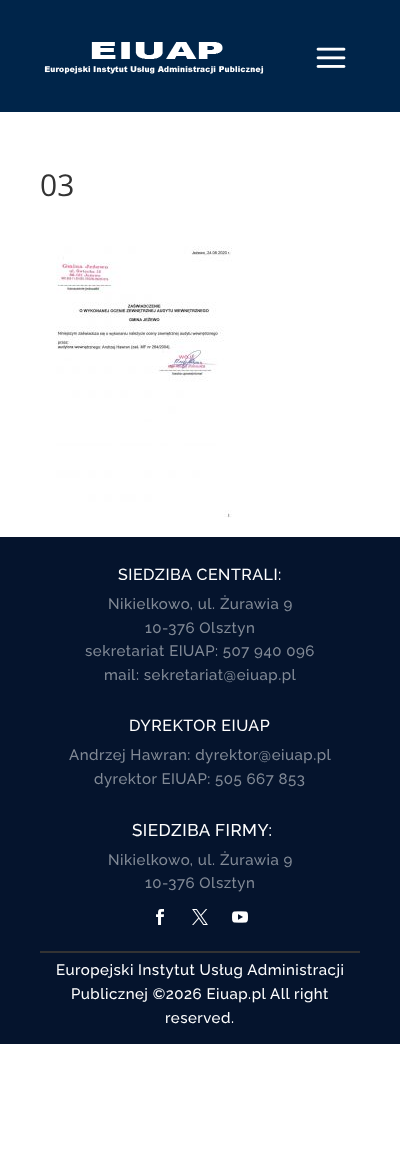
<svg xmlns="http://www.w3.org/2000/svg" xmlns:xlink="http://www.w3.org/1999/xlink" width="400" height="1171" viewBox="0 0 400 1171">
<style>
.cls-1{font:30px Open Sans;fill:#333333}
.cls-2{font:500 16px Raleway;letter-spacing:0.5px;fill:#ffffff}
.cls-3{font:500 15px Raleway;letter-spacing:0.5px;fill:#828a96}
.cls-4{font:500 17px Raleway;letter-spacing:0.5px;fill:#ffffff}
.cls-5{font:500 15px Raleway;letter-spacing:0.5px;fill:#ffffff}
</style>
<rect width="100%" height="100%" fill="#ffffff"/>
<rect fill="#00254a" x="0" y="0" width="400" height="112"/>
<image xlink:href="image0.png" x="44" y="42" width="220" height="32"/>
<image xlink:href="image1.png" x="316" y="47" width="30" height="21"/>
<image xlink:href="image2.png" x="56" y="246" width="176" height="272"/>
<rect fill="#05142d" x="0" y="537" width="400" height="507"/>
<image xlink:href="image3.png" x="156" y="909" width="8" height="16"/>
<image xlink:href="image4.png" x="192" y="909" width="16" height="16"/>
<image xlink:href="image5.png" x="232" y="911" width="16" height="12"/>
<rect fill="#333333" x="40" y="951" width="320" height="2"/>
<text class="cls-1" x="40" y="196">03</text>
<text class="cls-2" x="118" y="580">SIEDZIBA CENTRALI:</text>
<text class="cls-3" x="108" y="609">Nikielkowo, ul. Żurawia 9</text>
<text class="cls-3" x="145" y="633">10-376 Olsztyn</text>
<text class="cls-3" x="85" y="656">sekretariat EIUAP: 507 940 096</text>
<text class="cls-3" x="104" y="680">mail: sekretariat@eiuap.pl</text>
<text class="cls-2" x="129" y="731">DYREKTOR EIUAP</text>
<text class="cls-3" x="69" y="760">Andrzej Hawran: dyrektor@eiuap.pl</text>
<text class="cls-3" x="94" y="784">dyrektor EIUAP: 505 667 853</text>
<text class="cls-4" x="132" y="836">SIEDZIBA FIRMY:</text>
<text class="cls-3" x="108" y="865">Nikielkowo, ul. Żurawia 9</text>
<text class="cls-3" x="145" y="888">10-376 Olsztyn</text>
<text class="cls-5" x="56" y="975">Europejski Instytut Usług Administracji</text>
<text class="cls-5" x="71" y="999">Publicznej ©2026 Eiuap.pl</text>
<text class="cls-5" x="270" y="999">All right</text>
<text class="cls-5" x="165" y="1023">reserved.</text>
</svg>
